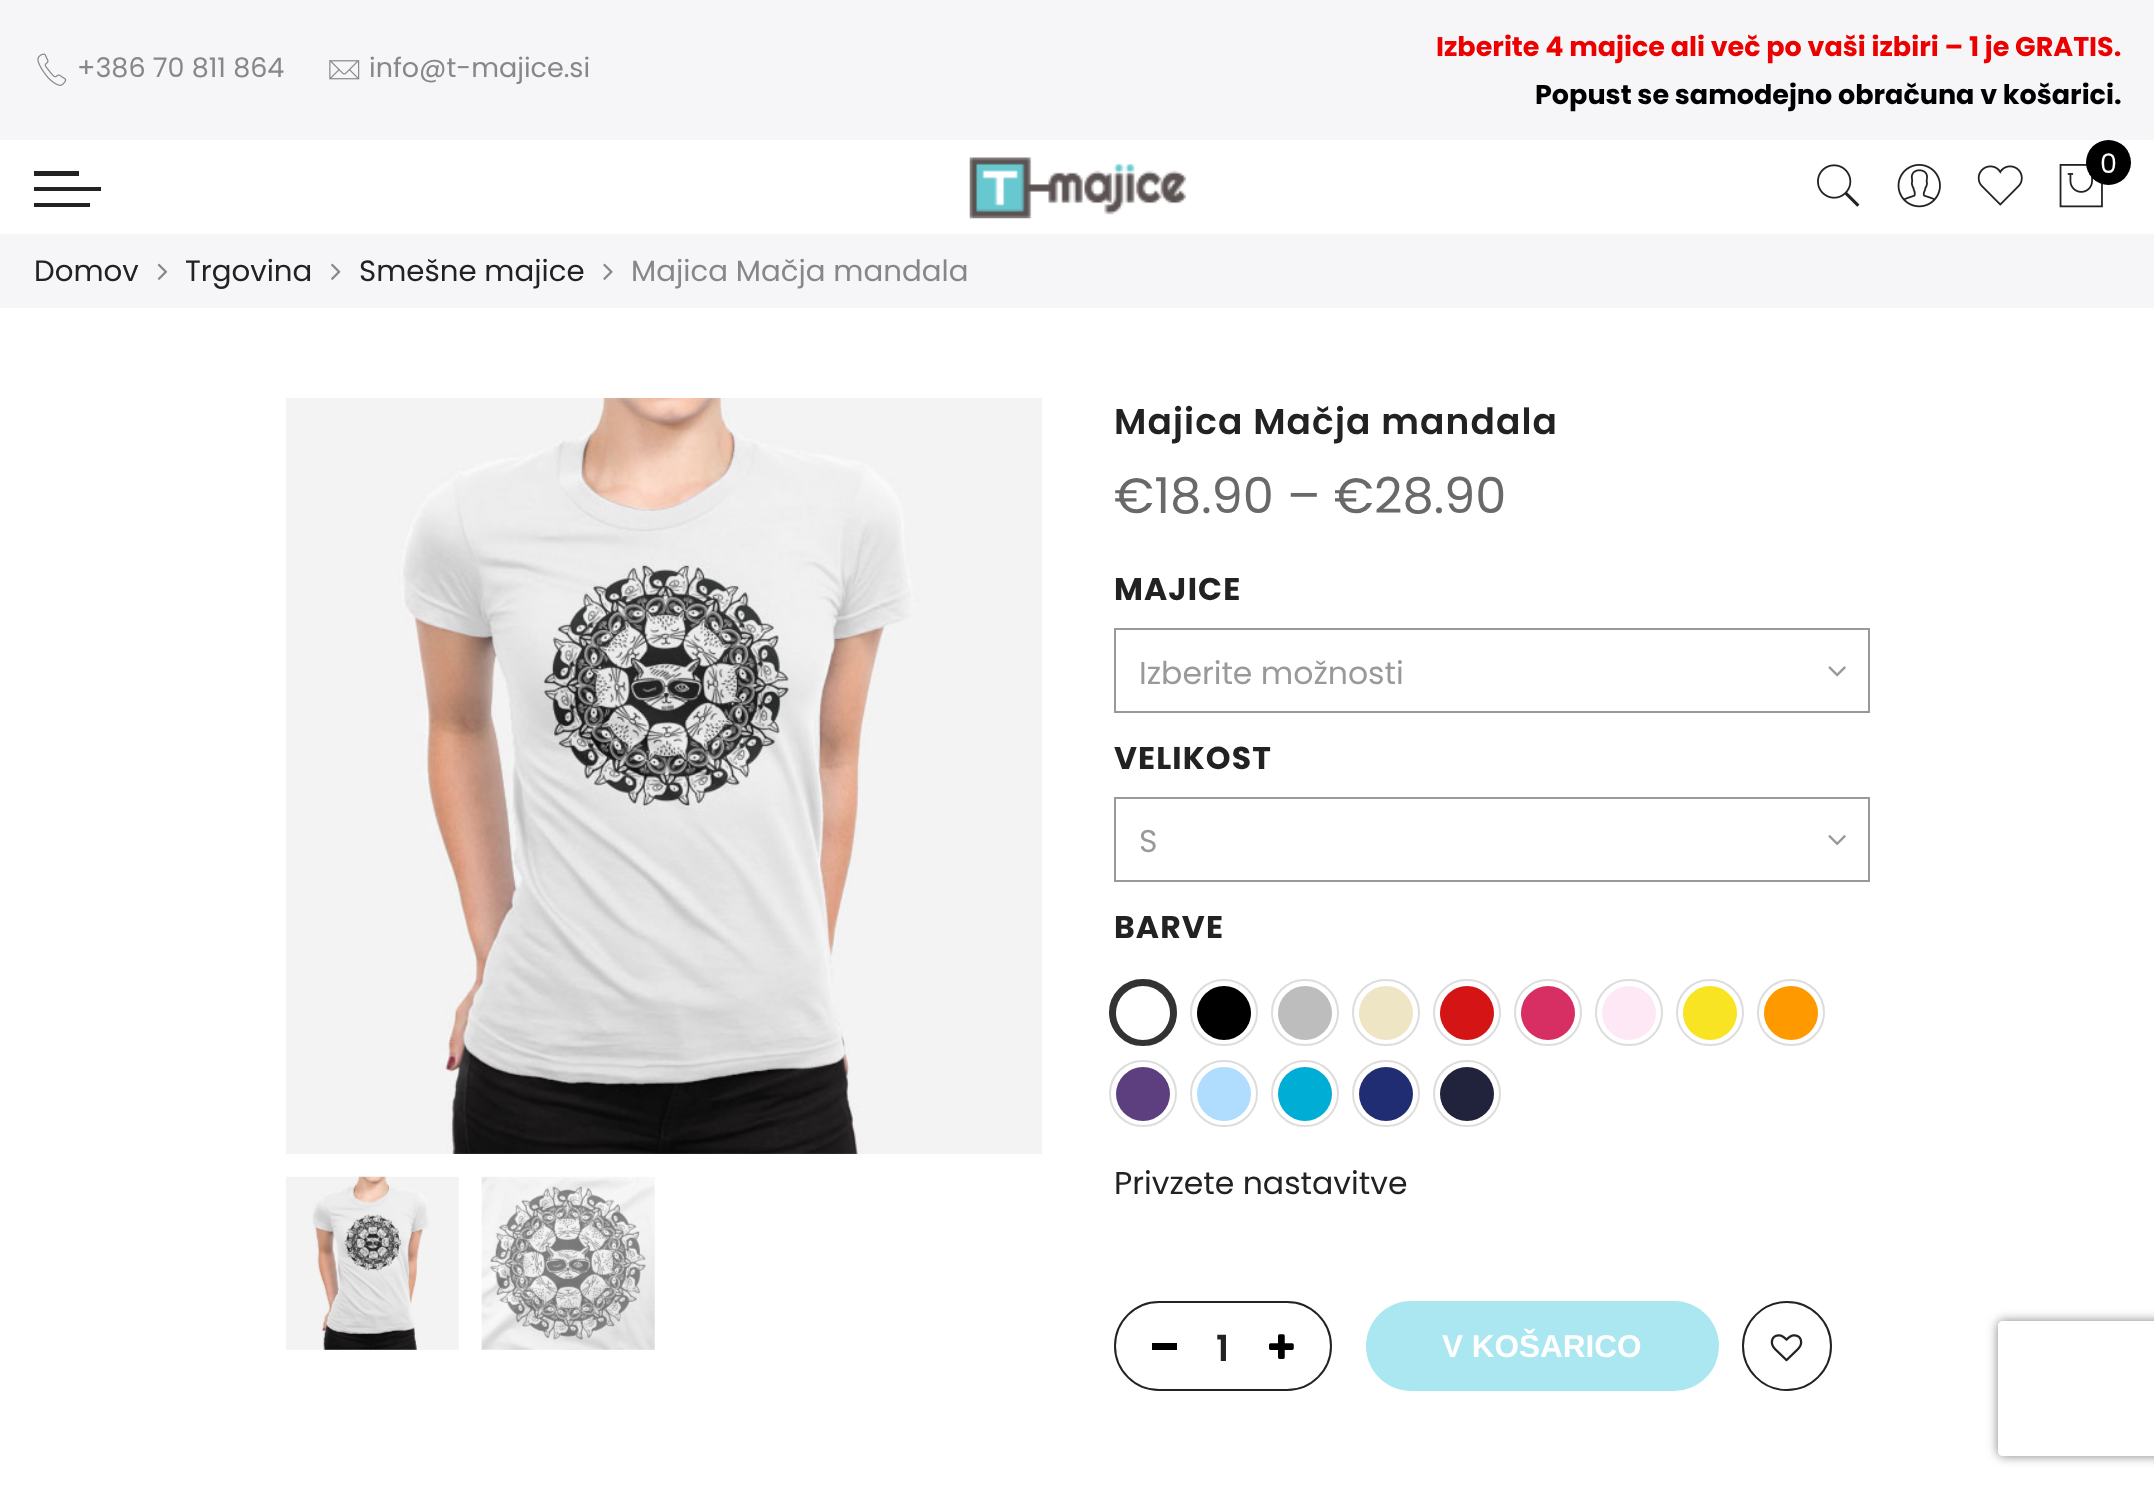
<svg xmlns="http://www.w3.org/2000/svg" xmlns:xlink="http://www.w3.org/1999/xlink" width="2154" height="1486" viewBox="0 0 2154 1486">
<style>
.cls-1{font:27px Poppins;fill:#878787}
.cls-2{font:bold 27px Poppins;fill:#ec0101}
.cls-3{font:bold 27px Poppins;fill:#000000}
.cls-4{font:27px Poppins;fill:#ffffff}
.cls-5{font:29.25px Poppins;fill:#222222}
.cls-6{font:29.25px Poppins;fill:#878787}
.cls-7{font:600 36px Poppins;letter-spacing:1.1px;fill:#222222}
.cls-8{font:49.5px Poppins;fill:#696969}
.cls-9{font:bold 31.5px Poppins;letter-spacing:1.1px;fill:#222222}
.cls-10{font:31.5px Poppins;fill:#999999}
.cls-11{font:31.5px Poppins;fill:#222222}
.cls-12{font:600 36px Poppins;fill:#222222}
.cls-13{font:bold 31.5px Liberation Sans;fill:#ffffff}
</style>
<defs>
<clipPath id="clip1"><path d="M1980 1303H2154V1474H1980ZM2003 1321H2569C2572 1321 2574 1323 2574 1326V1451C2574 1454 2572 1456 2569 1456H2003C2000 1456 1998 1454 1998 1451V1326C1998 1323 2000 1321 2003 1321Z" clip-rule="evenodd"/></clipPath>
</defs>
<rect width="100%" height="100%" fill="#ffffff"/>
<rect fill="#f6f6f8" x="0" y="0" width="2154" height="140"/>
<image xlink:href="image0.png" x="37" y="53" width="30" height="33"/>
<image xlink:href="image1.png" x="329" y="60" width="31" height="20"/>
<rect fill="#222222" x="34" y="171" width="45" height="5"/>
<rect fill="#222222" x="34" y="187" width="67" height="4"/>
<rect fill="#222222" x="34" y="203" width="56" height="4"/>
<image xlink:href="image2.png" x="969" y="157" width="217" height="62"/>
<image xlink:href="image3.png" x="1817" y="164" width="43" height="43"/>
<image xlink:href="image4.png" x="1897" y="164" width="44" height="44"/>
<image xlink:href="image5.png" x="1977" y="165" width="46" height="41"/>
<image xlink:href="image6.png" x="2059" y="164" width="44" height="44"/>
<circle fill="#000000" cx="2108.5" cy="162.5" r="22.5"/>
<rect fill="#f6f6f8" x="0" y="234" width="2154" height="74"/>
<image xlink:href="image7.png" x="157" y="263" width="11" height="17"/>
<image xlink:href="image8.png" x="331" y="263" width="10" height="17"/>
<image xlink:href="image9.png" x="603" y="263" width="10" height="17"/>
<image xlink:href="image10.png" x="286" y="398" width="756" height="756"/>
<image xlink:href="image11.png" x="286" y="1176" width="173" height="174"/>
<image xlink:href="image12.png" x="481" y="1176" width="174" height="174"/>
<rect fill="none" stroke="#999999" stroke-width="2" x="1115" y="629" width="754" height="83"/>
<image xlink:href="image13.png" x="1828" y="666" width="18" height="11"/>
<rect fill="none" stroke="#999999" stroke-width="2" x="1115" y="798" width="754" height="83"/>
<image xlink:href="image14.png" x="1828" y="835" width="18" height="11"/>
<rect fill="#333333" stroke="#333333" stroke-width="2" x="1110" y="980" width="66" height="65" rx="32.5"/>
<circle fill="#ffffff" cx="1143" cy="1013" r="27"/>
<rect fill="none" stroke="#dddddd" stroke-width="2" x="1191" y="980" width="66" height="65" rx="32.5"/>
<circle fill="#000000" cx="1224" cy="1013" r="27"/>
<rect fill="none" stroke="#dddddd" stroke-width="2" x="1272" y="980" width="66" height="65" rx="32.5"/>
<circle fill="#bdbdbd" cx="1305" cy="1013" r="27"/>
<rect fill="none" stroke="#dddddd" stroke-width="2" x="1353" y="980" width="66" height="65" rx="32.5"/>
<circle fill="#eee5c4" cx="1386" cy="1013" r="27"/>
<rect fill="none" stroke="#dddddd" stroke-width="2" x="1434" y="980" width="66" height="65" rx="32.5"/>
<circle fill="#d51515" cx="1467" cy="1013" r="27"/>
<rect fill="none" stroke="#dddddd" stroke-width="2" x="1515" y="980" width="66" height="65" rx="32.5"/>
<circle fill="#d72f63" cx="1548" cy="1013" r="27"/>
<rect fill="none" stroke="#dddddd" stroke-width="2" x="1596" y="980" width="66" height="65" rx="32.5"/>
<circle fill="#fee8f5" cx="1629" cy="1013" r="27"/>
<rect fill="none" stroke="#dddddd" stroke-width="2" x="1677" y="980" width="66" height="65" rx="32.5"/>
<circle fill="#f8e423" cx="1710" cy="1013" r="27"/>
<rect fill="none" stroke="#dddddd" stroke-width="2" x="1758" y="980" width="66" height="65" rx="32.5"/>
<circle fill="#ff9900" cx="1791" cy="1013" r="27"/>
<rect fill="none" stroke="#dddddd" stroke-width="2" x="1110" y="1061" width="66" height="65" rx="32.5"/>
<circle fill="#5d3f7f" cx="1143" cy="1094" r="27"/>
<rect fill="none" stroke="#dddddd" stroke-width="2" x="1191" y="1061" width="66" height="65" rx="32.5"/>
<circle fill="#b0dcfd" cx="1224" cy="1094" r="27"/>
<rect fill="none" stroke="#dddddd" stroke-width="2" x="1272" y="1061" width="66" height="65" rx="32.5"/>
<circle fill="#00add5" cx="1305" cy="1094" r="27"/>
<rect fill="none" stroke="#dddddd" stroke-width="2" x="1353" y="1061" width="66" height="65" rx="32.5"/>
<circle fill="#202d73" cx="1386" cy="1094" r="27"/>
<rect fill="none" stroke="#dddddd" stroke-width="2" x="1434" y="1061" width="66" height="65" rx="32.5"/>
<circle fill="#21233c" cx="1467" cy="1094" r="27"/>
<rect fill="none" stroke="#222222" stroke-width="2" x="1115" y="1302" width="216" height="88" rx="44"/>
<rect fill="#000000" x="1152" y="1343" width="25" height="7"/>
<image xlink:href="image15.png" x="1269" y="1334" width="25" height="25"/>
<rect fill="#abe7f0" x="1366" y="1301" width="353" height="90" rx="45"/>
<circle fill="none" stroke="#222222" stroke-width="2" cx="1787" cy="1346" r="44"/>
<image xlink:href="image16.png" x="1770" y="1334" width="33" height="28"/>
<g clip-path="url(#clip1)">
<rect fill="#808080" filter="blur(5.5px)" x="1998" y="1321" width="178" height="135" rx="5"/>
</g>
<text class="cls-1" x="77" y="77">+386 70 811 864</text>
<text class="cls-1" x="369" y="77">info@t-majice.si</text>
<text class="cls-2" x="1436" y="56">Izberite 4 majice ali več po vaši izbiri – 1 je GRATIS.</text>
<text class="cls-3" x="1535" y="104">Popust se samodejno obračuna v košarici.</text>
<text class="cls-4" x="2100" y="173">0</text>
<text class="cls-5" x="34" y="281">Domov</text>
<text class="cls-5" x="185" y="281">Trgovina</text>
<text class="cls-5" x="359" y="281">Smešne majice</text>
<text class="cls-6" x="631" y="281">Majica Mačja mandala</text>
<text class="cls-7" x="1114" y="434">Majica Mačja mandala</text>
<text class="cls-8" x="1114" y="513">€18.90 – €28.90</text>
<text class="cls-9" x="1114" y="600">MAJICE</text>
<text class="cls-10" x="1139" y="684">Izberite možnosti</text>
<text class="cls-9" x="1114" y="769">VELIKOST</text>
<text class="cls-10" x="1139" y="852">S</text>
<text class="cls-9" x="1114" y="938">BARVE</text>
<text class="cls-11" x="1114" y="1194">Privzete nastavitve</text>
<text class="cls-12" x="1216" y="1361">1</text>
<text class="cls-13" x="1442" y="1357">V KOŠARICO</text>
</svg>
